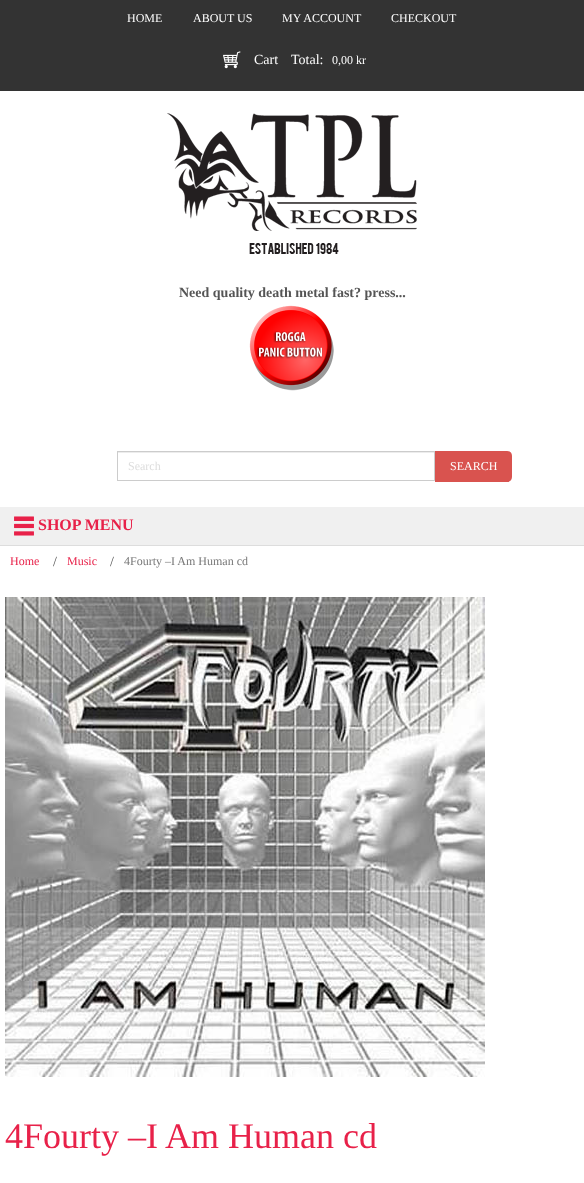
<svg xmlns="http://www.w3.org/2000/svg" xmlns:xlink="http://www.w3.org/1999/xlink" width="584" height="1183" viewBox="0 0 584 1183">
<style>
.cls-1{font:12px Liberation Serif;fill:#ffffff}
.cls-2{font:14px Liberation Serif;fill:#ffffff}
.cls-3{font:bold 14px Liberation Serif;fill:#555555}
.cls-4{font:12px Liberation Serif;fill:#dddddd}
.cls-5{font:bold 16px Liberation Serif;fill:#e82149}
.cls-6{font:12px Liberation Serif;fill:#e82149}
.cls-7{font:14px Liberation Serif;fill:#555555}
.cls-8{font:12px Liberation Serif;fill:#777777}
.cls-9{font:36px Liberation Serif;fill:#e82149}
</style>
<rect width="100%" height="100%" fill="#ffffff"/>
<rect fill="#333333" x="0" y="0" width="584" height="91"/>
<image xlink:href="image0.png" x="223" y="51" width="18" height="18"/>
<image xlink:href="image1.png" x="167" y="113" width="250" height="141"/>
<image xlink:href="image2.png" x="249" y="305" width="85" height="86"/>
<rect fill="#ececec" x="118" y="452" width="316" height="1"/>
<rect fill="none" stroke="#cccccc" x="117.5" y="451.5" width="317" height="29"/>
<path fill="#d9534f" d="M435 451H507C510 451 512 453 512 456V477C512 480 510 482 507 482H435Z"/>
<rect fill="#f0f0f0" x="0" y="507" width="584" height="38"/>
<image xlink:href="image3.png" x="14" y="516" width="20" height="20"/>
<rect fill="#dddddd" x="0" y="545" width="584" height="1"/>
<image xlink:href="image4.png" x="5" y="597" width="480" height="480"/>
<text class="cls-1" x="127" y="22">HOME</text>
<text class="cls-1" x="193" y="22">ABOUT US</text>
<text class="cls-1" x="282" y="22">MY ACCOUNT</text>
<text class="cls-1" x="391" y="22">CHECKOUT</text>
<text class="cls-2" x="254" y="64">Cart</text>
<text class="cls-2" x="291" y="64">Total:</text>
<text class="cls-1" x="332" y="64">0,00 kr</text>
<text class="cls-3" x="179" y="297">Need quality death metal fast? press...</text>
<text class="cls-4" x="128" y="470">Search</text>
<text class="cls-1" x="450" y="470">SEARCH</text>
<text class="cls-5" x="38" y="530">SHOP MENU</text>
<text class="cls-6" x="10" y="565">Home</text>
<text class="cls-7" x="53" y="566">/</text>
<text class="cls-6" x="67" y="565">Music</text>
<text class="cls-7" x="110" y="566">/</text>
<text class="cls-8" x="124" y="565">4Fourty –I Am Human cd</text>
<text class="cls-9" x="5" y="1148">4Fourty –I Am Human cd</text>
</svg>
